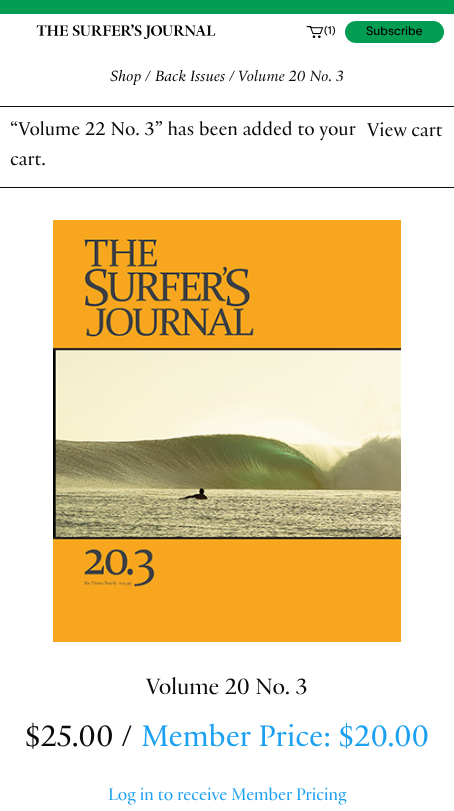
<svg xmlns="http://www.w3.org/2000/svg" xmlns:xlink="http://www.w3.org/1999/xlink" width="454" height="811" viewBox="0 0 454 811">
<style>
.cls-1{font:11px 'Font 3';fill:#0a0a0a}
.cls-2{font:12px 'Font 3';fill:#000000}
.cls-3{font:italic 16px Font;fill:#000000}
.cls-4{font:italic 16px Font;fill:#0a0a0a}
.cls-5{font:20px Font;fill:#0a0a0a}
.cls-6{font:24px 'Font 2';fill:#0a0a0a}
.cls-7{font:32px Font;fill:#0a0a0a}
.cls-8{font:32px Font;fill:#1ca1f2}
.cls-9{font:18px 'Font 2';fill:#1ca1f2}
</style>
<rect width="100%" height="100%" fill="#ffffff"/>
<rect fill="#009d53" x="0" y="0" width="454" height="14"/>
<image xlink:href="image0.png" x="36" y="24" width="180" height="15"/>
<image xlink:href="image1.png" x="306" y="26" width="18" height="12"/>
<rect fill="#009d53" x="345" y="21" width="99" height="22" rx="11"/>
<rect fill="#0a0a0a" x="0" y="106" width="454" height="1"/>
<rect fill="#0a0a0a" x="0" y="187" width="454" height="1"/>
<image xlink:href="image2.png" x="53" y="220" width="348" height="422"/>
<text class="cls-1" x="324" y="34">(1)</text>
<text class="cls-2" x="366" y="35">Subscribe</text>
<text class="cls-3" x="110" y="81">Shop</text>
<text class="cls-4" x="145" y="81">/</text>
<text class="cls-3" x="155" y="81">Back Issues</text>
<text class="cls-4" x="229" y="81">/ Volume 20 No. 3</text>
<text class="cls-5" x="10" y="135">“Volume 22 No. 3” has been added to your</text>
<text class="cls-5" x="367" y="136">View cart</text>
<text class="cls-5" x="10" y="165">cart.</text>
<text class="cls-6" x="146" y="694">Volume 20 No. 3</text>
<text class="cls-7" x="25" y="746">$25.00 /</text>
<text class="cls-8" x="141" y="746">Member Price: $20.00</text>
<text class="cls-9" x="108" y="800">Log in to receive Member Pricing</text>
</svg>
